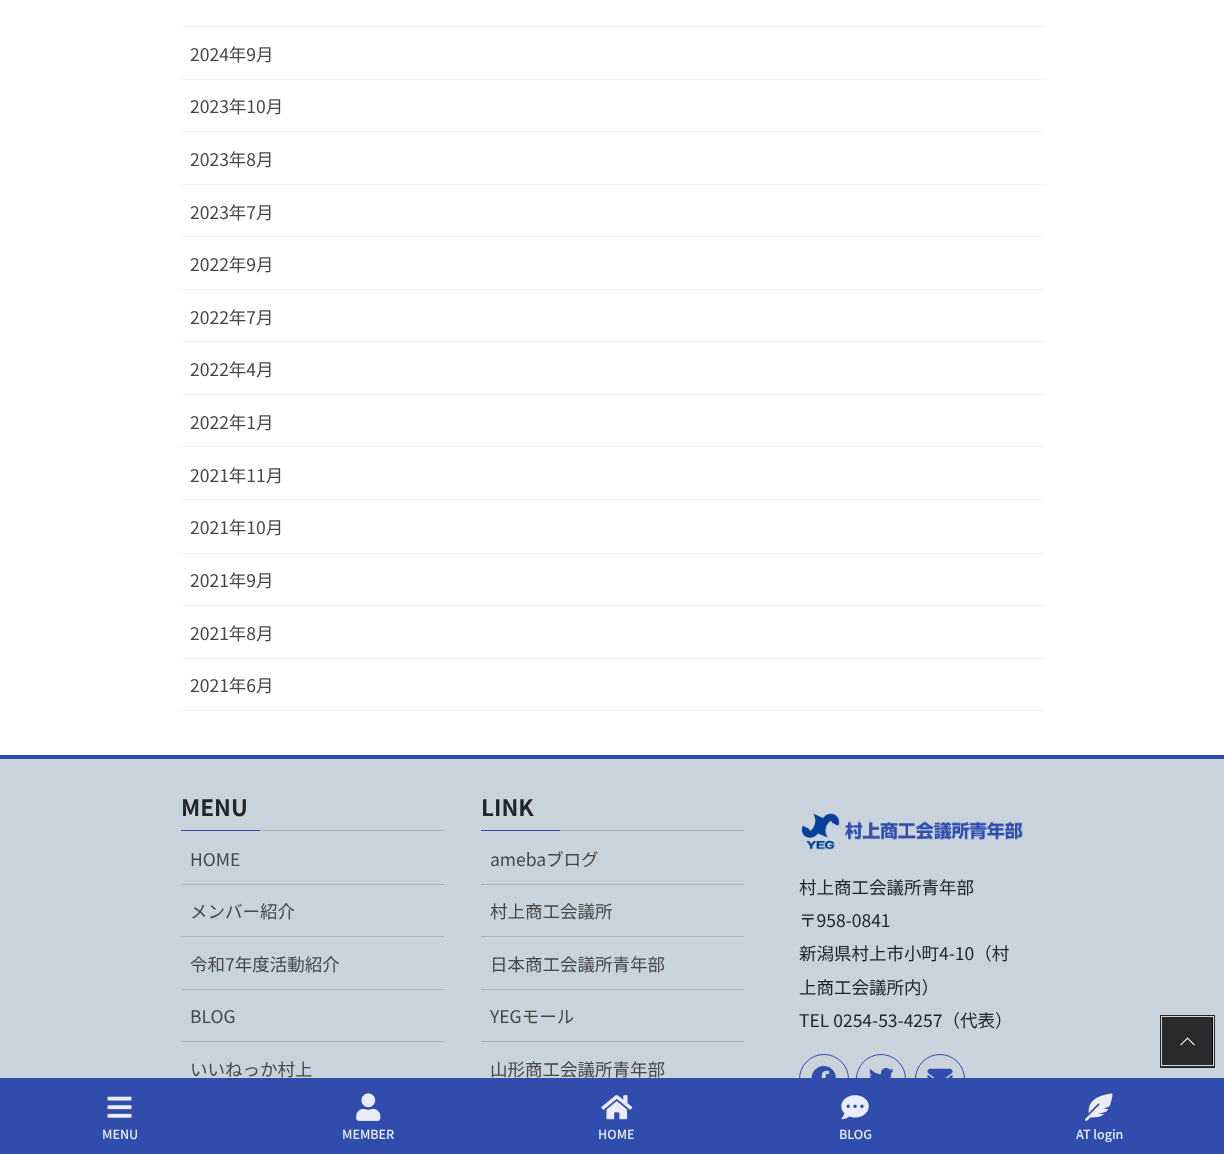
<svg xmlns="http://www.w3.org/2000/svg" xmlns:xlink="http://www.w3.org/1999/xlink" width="1224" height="1154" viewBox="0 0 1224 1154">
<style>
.cls-1{font:17.5px Noto Sans JP;fill:#464646}
.cls-2{font:bold 22.5px Noto Sans JP;fill:#212529}
.cls-3{font:17.5px Noto Sans JP;fill:#212529}
.cls-4{font:500 12.5px Noto Sans JP;fill:#eaedf7}
</style>
<rect width="100%" height="100%" fill="#ffffff"/>
<rect fill="#f2f2f2" x="181" y="26" width="863" height="1"/>
<rect fill="#f2f2f2" x="181" y="79" width="863" height="1"/>
<rect fill="#f2f2f2" x="181" y="131" width="863" height="1"/>
<rect fill="#f2f2f2" x="181" y="184" width="863" height="1"/>
<rect fill="#f2f2f2" x="181" y="236" width="863" height="1"/>
<rect fill="#f2f2f2" x="181" y="289" width="863" height="1"/>
<rect fill="#f2f2f2" x="181" y="341" width="863" height="1"/>
<rect fill="#f2f2f2" x="181" y="394" width="863" height="1"/>
<rect fill="#f2f2f2" x="181" y="446" width="863" height="1"/>
<rect fill="#f2f2f2" x="181" y="499" width="863" height="1"/>
<rect fill="#f2f2f2" x="181" y="553" width="863" height="1"/>
<rect fill="#f2f2f2" x="181" y="605" width="863" height="1"/>
<rect fill="#f2f2f2" x="181" y="658" width="863" height="1"/>
<rect fill="#f2f2f2" x="181" y="710" width="863" height="1"/>
<rect fill="#c9d3db" x="0" y="759" width="1224" height="319"/>
<rect fill="#304dad" x="0" y="755" width="1224" height="4"/>
<rect fill="#abb3ba" x="260" y="830" width="184" height="1"/>
<rect fill="#304dad" x="181" y="830" width="79" height="1"/>
<rect fill="#abb3ba" x="181" y="884" width="263" height="1"/>
<rect fill="#abb3ba" x="181" y="936" width="263" height="1"/>
<rect fill="#abb3ba" x="181" y="989" width="263" height="1"/>
<rect fill="#abb3ba" x="181" y="1041" width="263" height="1"/>
<rect fill="#abb3ba" x="560" y="830" width="184" height="1"/>
<rect fill="#304dad" x="481" y="830" width="79" height="1"/>
<rect fill="#abb3ba" x="481" y="884" width="263" height="1"/>
<rect fill="#abb3ba" x="481" y="936" width="263" height="1"/>
<rect fill="#abb3ba" x="481" y="989" width="263" height="1"/>
<rect fill="#abb3ba" x="481" y="1041" width="263" height="1"/>
<image xlink:href="image0.png" x="801" y="813" width="222" height="37"/>
<circle fill="none" stroke="#304dad" cx="824" cy="1079" r="24.5"/>
<image xlink:href="image1.png" x="811" y="1066" width="25" height="12"/>
<circle fill="none" stroke="#304dad" cx="881" cy="1079" r="24.5"/>
<image xlink:href="image2.png" x="869" y="1068" width="25" height="10"/>
<circle fill="none" stroke="#304dad" cx="940" cy="1079" r="24.5"/>
<image xlink:href="image3.png" x="927" y="1068" width="26" height="10"/>
<rect fill="none" stroke="#282a2c" stroke-width="3" x="1161.5" y="1016.5" width="52" height="50"/>
<rect fill="none" stroke="#d4d4d5" x="1161.5" y="1016.5" width="52" height="49"/>
<rect fill="#000000" fill-opacity="0.8" x="1163" y="1018" width="50" height="47"/>
<image xlink:href="image4.png" x="1180" y="1037" width="15" height="9"/>
<rect fill="#304dad" x="0" y="1078" width="1224" height="76"/>
<image xlink:href="image5.png" x="107" y="1096" width="25" height="22"/>
<image xlink:href="image6.png" x="356" y="1093" width="25" height="28"/>
<image xlink:href="image7.png" x="601" y="1095" width="32" height="25"/>
<image xlink:href="image8.png" x="841" y="1095" width="28" height="25"/>
<image xlink:href="image9.png" x="1085" y="1093" width="28" height="28"/>
<text class="cls-1" x="190" y="61">2024年9月</text>
<text class="cls-1" x="190" y="113">2023年10月</text>
<text class="cls-1" x="190" y="166">2023年8月</text>
<text class="cls-1" x="190" y="219">2023年7月</text>
<text class="cls-1" x="190" y="271">2022年9月</text>
<text class="cls-1" x="190" y="324">2022年7月</text>
<text class="cls-1" x="190" y="376">2022年4月</text>
<text class="cls-1" x="190" y="429">2022年1月</text>
<text class="cls-1" x="190" y="482">2021年11月</text>
<text class="cls-1" x="190" y="534">2021年10月</text>
<text class="cls-1" x="190" y="587">2021年9月</text>
<text class="cls-1" x="190" y="640">2021年8月</text>
<text class="cls-1" x="190" y="692">2021年6月</text>
<text class="cls-2" x="181" y="816">MENU</text>
<text class="cls-1" x="190" y="866">HOME</text>
<text class="cls-1" x="190" y="918">メンバー紹介</text>
<text class="cls-1" x="190" y="971">令和7年度活動紹介</text>
<text class="cls-1" x="190" y="1023">BLOG</text>
<text class="cls-1" x="190" y="1076">いいねっか村上</text>
<text class="cls-2" x="481" y="816">LINK</text>
<text class="cls-1" x="490" y="866">amebaブログ</text>
<text class="cls-1" x="490" y="918">村上商工会議所</text>
<text class="cls-1" x="490" y="971">日本商工会議所青年部</text>
<text class="cls-1" x="490" y="1023">YEGモール</text>
<text class="cls-1" x="490" y="1076">山形商工会議所青年部</text>
<text class="cls-3"><tspan x="799" y="894">村上商工会議所青年部</tspan><tspan x="799" y="927">〒958-0841</tspan><tspan x="799" y="960">新潟県村上市小町4-10（村</tspan><tspan x="799" y="994">上商工会議所内）</tspan><tspan x="799" y="1027">TEL 0254-53-4257（代表）</tspan></text>
<text class="cls-4" x="102" y="1139">MENU</text>
<text class="cls-4" x="342" y="1139">MEMBER</text>
<text class="cls-4" x="598" y="1139">HOME</text>
<text class="cls-4" x="839" y="1139">BLOG</text>
<text class="cls-4" x="1076" y="1139">AT login</text>
</svg>
